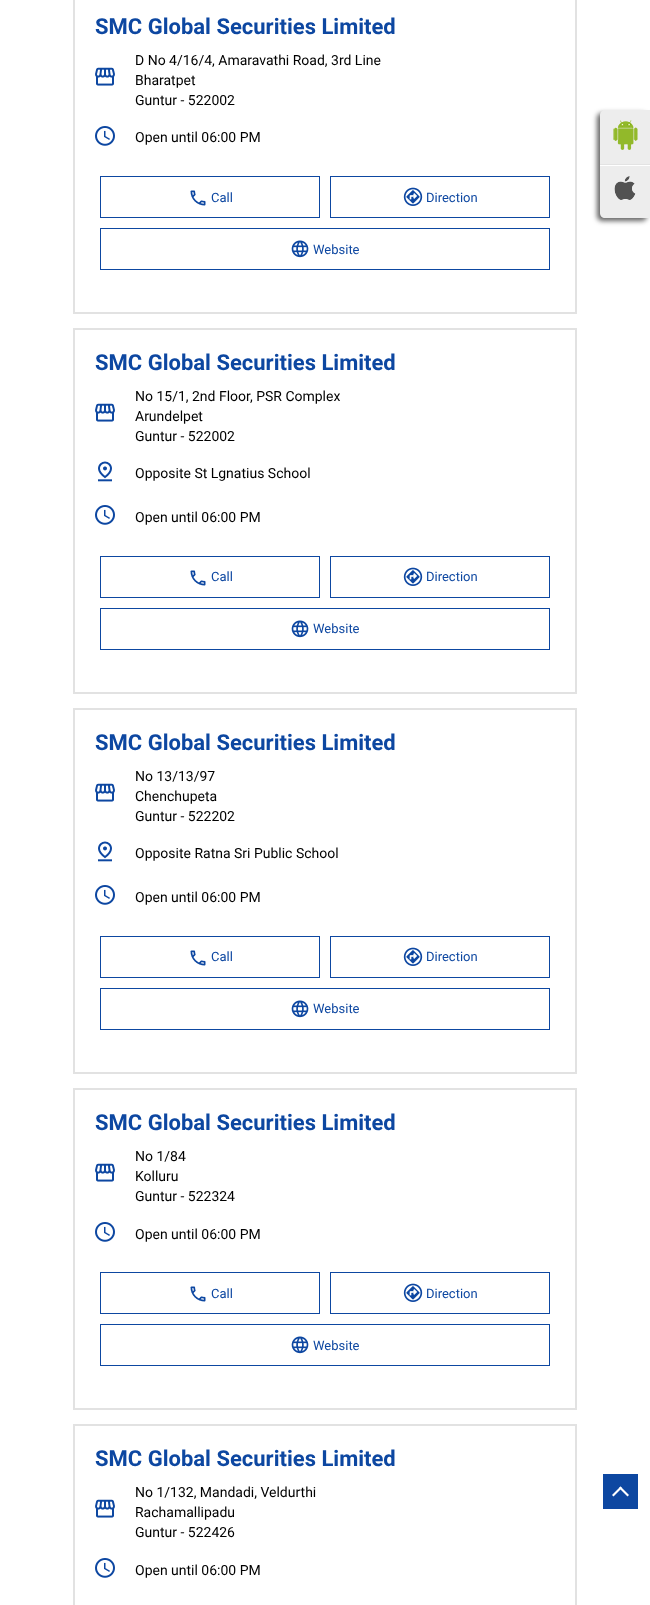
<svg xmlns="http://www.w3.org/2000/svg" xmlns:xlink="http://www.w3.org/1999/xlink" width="650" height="1605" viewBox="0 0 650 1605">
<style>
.cls-1{font:bold 22px Roboto;fill:#0d47a1}
.cls-2{font:14px Roboto;fill:#000000}
.cls-3{font:13px Roboto;fill:#0d47a1}
</style>
<defs>
<clipPath id="clip1"><path d="M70 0H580V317H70ZM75-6H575V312H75Z" clip-rule="evenodd"/></clipPath>
<clipPath id="clip2"><path d="M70 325H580V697H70ZM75 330H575V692H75Z" clip-rule="evenodd"/></clipPath>
<clipPath id="clip3"><path d="M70 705H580V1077H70ZM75 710H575V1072H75Z" clip-rule="evenodd"/></clipPath>
<clipPath id="clip4"><path d="M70 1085H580V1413H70ZM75 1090H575V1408H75Z" clip-rule="evenodd"/></clipPath>
<clipPath id="clip5"><path d="M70 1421H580V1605H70ZM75 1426H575V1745H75Z" clip-rule="evenodd"/></clipPath>
</defs>
<rect width="100%" height="100%" fill="#ffffff"/>
<g clip-path="url(#clip1)">
<rect fill="#e2e2e2" filter="blur(0.5px)" x="73" y="-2" width="504" height="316"/>
</g>
<image xlink:href="image0.png" x="95" y="67" width="20" height="19"/>
<image xlink:href="image1.png" x="95" y="126" width="20" height="20"/>
<rect fill="none" stroke="#0d47a1" x="100.5" y="176.5" width="219" height="41"/>
<image xlink:href="image2.png" x="190" y="190" width="16" height="16"/>
<rect fill="none" stroke="#0d47a1" x="330.5" y="176.5" width="219" height="41"/>
<image xlink:href="image3.png" x="403" y="187" width="20" height="19"/>
<rect fill="none" stroke="#0d47a1" x="100.5" y="228.5" width="449" height="41"/>
<image xlink:href="image4.png" x="291" y="240" width="18" height="18"/>
<g clip-path="url(#clip2)">
<rect fill="#e2e2e2" filter="blur(0.5px)" x="73" y="328" width="504" height="366"/>
</g>
<image xlink:href="image0.png" x="95" y="403" width="20" height="19"/>
<image xlink:href="image5.png" x="98" y="461" width="14" height="21"/>
<image xlink:href="image1.png" x="95" y="505" width="20" height="20"/>
<rect fill="none" stroke="#0d47a1" x="100.5" y="556.5" width="219" height="41"/>
<image xlink:href="image2.png" x="190" y="570" width="16" height="16"/>
<rect fill="none" stroke="#0d47a1" x="330.5" y="556.5" width="219" height="41"/>
<image xlink:href="image3.png" x="403" y="567" width="20" height="19"/>
<rect fill="none" stroke="#0d47a1" x="100.5" y="608.5" width="449" height="41"/>
<image xlink:href="image4.png" x="291" y="620" width="18" height="18"/>
<g clip-path="url(#clip3)">
<rect fill="#e2e2e2" filter="blur(0.5px)" x="73" y="708" width="504" height="366"/>
</g>
<image xlink:href="image0.png" x="95" y="783" width="20" height="19"/>
<image xlink:href="image5.png" x="98" y="841" width="14" height="21"/>
<image xlink:href="image1.png" x="95" y="885" width="20" height="20"/>
<rect fill="none" stroke="#0d47a1" x="100.5" y="936.5" width="219" height="41"/>
<image xlink:href="image2.png" x="190" y="950" width="16" height="16"/>
<rect fill="none" stroke="#0d47a1" x="330.5" y="936.5" width="219" height="41"/>
<image xlink:href="image3.png" x="403" y="947" width="20" height="19"/>
<rect fill="none" stroke="#0d47a1" x="100.5" y="988.5" width="449" height="41"/>
<image xlink:href="image4.png" x="291" y="1000" width="18" height="18"/>
<g clip-path="url(#clip4)">
<rect fill="#e2e2e2" filter="blur(0.5px)" x="73" y="1088" width="504" height="322"/>
</g>
<image xlink:href="image0.png" x="95" y="1163" width="20" height="19"/>
<image xlink:href="image1.png" x="95" y="1222" width="20" height="20"/>
<rect fill="none" stroke="#0d47a1" x="100.5" y="1272.5" width="219" height="41"/>
<image xlink:href="image2.png" x="190" y="1286" width="16" height="16"/>
<rect fill="none" stroke="#0d47a1" x="330.5" y="1272.5" width="219" height="41"/>
<image xlink:href="image3.png" x="403" y="1283" width="20" height="19"/>
<rect fill="none" stroke="#0d47a1" x="100.5" y="1324.5" width="449" height="41"/>
<image xlink:href="image4.png" x="291" y="1336" width="18" height="18"/>
<g clip-path="url(#clip5)">
<rect fill="#e2e2e2" filter="blur(0.5px)" x="73" y="1424" width="504" height="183"/>
</g>
<image xlink:href="image0.png" x="95" y="1499" width="20" height="19"/>
<image xlink:href="image1.png" x="95" y="1558" width="20" height="20"/>
<rect fill="#323232" fill-opacity="0.75" filter="blur(2.5px)" x="597" y="113" width="50" height="108" rx="5"/>
<path fill="#ededed" d="M605 110H650V218H605C602 218 600 216 600 213V115C600 112 602 110 605 110Z"/>
<rect fill="#e3e3e3" x="600" y="164" width="50" height="1"/>
<image xlink:href="image6.png" x="613" y="120" width="25" height="30"/>
<rect fill="#ffffff" x="600" y="165" width="50" height="1"/>
<image xlink:href="image7.png" x="614" y="176" width="22" height="24"/>
<rect fill="#0d47a1" x="603" y="1474" width="35" height="35"/>
<path fill="#ffffff" d="M613.5 1496.5L612 1495L620.5 1486.5L622 1488Z"/>
<path fill="#ffffff" d="M627.5 1496.5L619 1488L620.5 1486.5L629 1495Z"/>
<text class="cls-1" x="95" y="34">SMC Global Securities Limited</text>
<text class="cls-2"><tspan x="135" y="65">D No 4/16/4, Amaravathi Road, 3rd Line</tspan><tspan x="135" y="85">Bharatpet</tspan><tspan x="135" y="105">Guntur - 522002</tspan></text>
<text class="cls-2" x="135" y="142">Open until 06:00 PM</text>
<text class="cls-3" x="211" y="202">Call</text>
<text class="cls-3" x="426" y="202">Direction</text>
<text class="cls-3" x="313" y="254">Website</text>
<text class="cls-1" x="95" y="370">SMC Global Securities Limited</text>
<text class="cls-2"><tspan x="135" y="401">No 15/1, 2nd Floor, PSR Complex</tspan><tspan x="135" y="421">Arundelpet</tspan><tspan x="135" y="441">Guntur - 522002</tspan></text>
<text class="cls-2" x="135" y="478">Opposite St Lgnatius School</text>
<text class="cls-2" x="135" y="522">Open until 06:00 PM</text>
<text class="cls-3" x="211" y="581">Call</text>
<text class="cls-3" x="426" y="581">Direction</text>
<text class="cls-3" x="313" y="633">Website</text>
<text class="cls-1" x="95" y="750">SMC Global Securities Limited</text>
<text class="cls-2"><tspan x="135" y="781">No 13/13/97</tspan><tspan x="135" y="801">Chenchupeta</tspan><tspan x="135" y="821">Guntur - 522202</tspan></text>
<text class="cls-2" x="135" y="858">Opposite Ratna Sri Public School</text>
<text class="cls-2" x="135" y="902">Open until 06:00 PM</text>
<text class="cls-3" x="211" y="961">Call</text>
<text class="cls-3" x="426" y="961">Direction</text>
<text class="cls-3" x="313" y="1013">Website</text>
<text class="cls-1" x="95" y="1130">SMC Global Securities Limited</text>
<text class="cls-2"><tspan x="135" y="1161">No 1/84</tspan><tspan x="135" y="1181">Kolluru</tspan><tspan x="135" y="1201">Guntur - 522324</tspan></text>
<text class="cls-2" x="135" y="1239">Open until 06:00 PM</text>
<text class="cls-3" x="211" y="1298">Call</text>
<text class="cls-3" x="426" y="1298">Direction</text>
<text class="cls-3" x="313" y="1350">Website</text>
<text class="cls-1" x="95" y="1466">SMC Global Securities Limited</text>
<text class="cls-2"><tspan x="135" y="1497">No 1/132, Mandadi, Veldurthi</tspan><tspan x="135" y="1517">Rachamallipadu</tspan><tspan x="135" y="1537">Guntur - 522426</tspan></text>
<text class="cls-2" x="135" y="1575">Open until 06:00 PM</text>
</svg>
